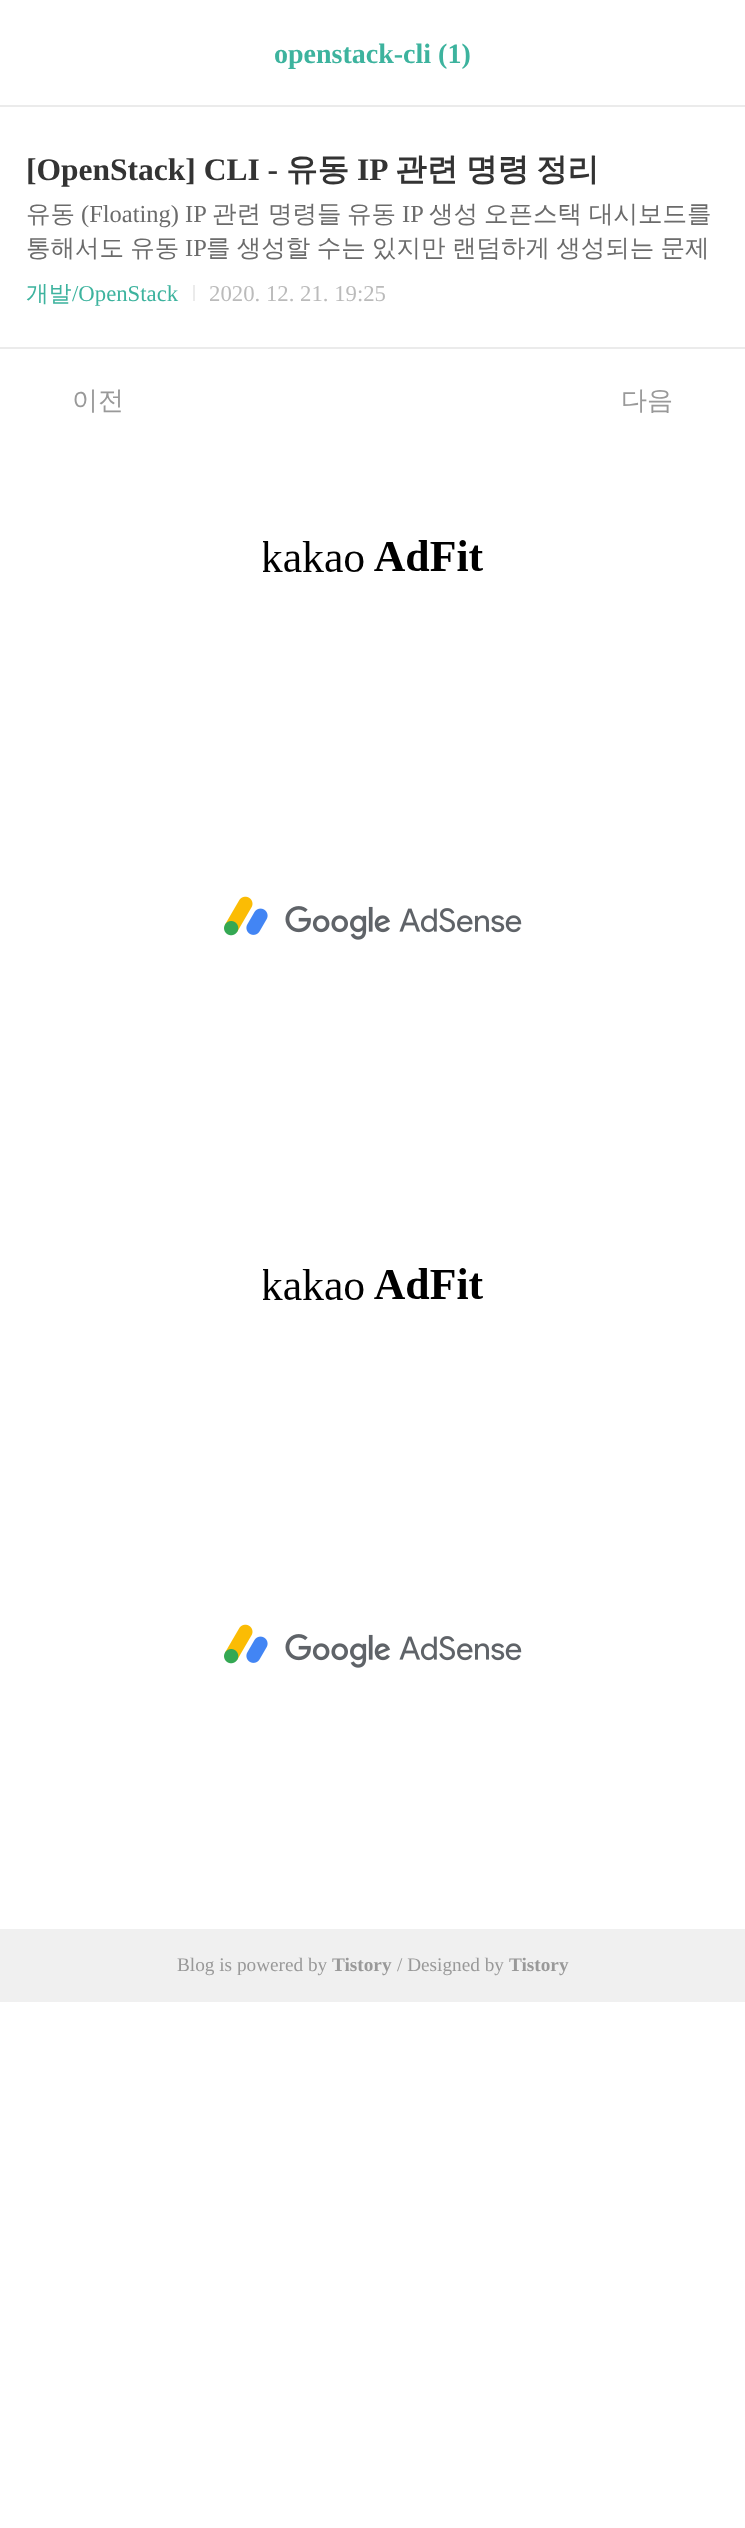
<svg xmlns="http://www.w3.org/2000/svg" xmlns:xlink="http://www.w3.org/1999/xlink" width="745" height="2528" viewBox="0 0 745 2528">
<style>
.cls-1{font:bold 28px Liberation Serif;fill:#3db39e}
.cls-2{font:bold 31.5px Liberation Serif;fill:#333333}
.cls-3{font:bold 31.5px WenQuanYi Zen Hei;fill:#333333}
.cls-4{font:500 24.5px WenQuanYi Zen Hei;fill:#6b6b6b}
.cls-5{font:24.5px Liberation Serif;fill:#6b6b6b}
.cls-6{font:500 22.75px WenQuanYi Zen Hei;fill:#3db39e}
.cls-7{font:22.75px Liberation Serif;fill:#3db39e}
.cls-8{font:22.75px Liberation Serif;fill:#bbbbbb}
.cls-9{font:500 26px WenQuanYi Zen Hei;fill:#999999}
.cls-10{font:19.25px Liberation Serif;fill:#999999}
.cls-11{font:bold 19.25px Liberation Serif;fill:#999999}
</style>
<rect width="100%" height="100%" fill="#ffffff"/>
<rect fill="#ebebeb" x="0" y="105" width="745" height="2"/>
<rect fill="#ebebeb" x="0" y="347" width="745" height="2"/>
<rect fill="#ebebeb" x="193" y="285" width="2" height="16"/>
<image xlink:href="image0.png" x="263" y="540" width="220" height="32"/>
<image xlink:href="image1.png" x="224" y="896" width="298" height="44"/>
<image xlink:href="image0.png" x="263" y="1268" width="220" height="32"/>
<image xlink:href="image1.png" x="224" y="1624" width="298" height="44"/>
<rect fill="#f0f0f0" x="0" y="1929" width="745" height="73"/>
<text class="cls-1" x="274" y="63">openstack-cli (1)</text>
<text class="cls-2" x="26" y="180">[OpenStack] CLI -</text>
<text class="cls-3" x="286" y="180">유동</text>
<text class="cls-2" x="357" y="180">IP</text>
<text class="cls-3" x="395" y="180">관련</text>
<text class="cls-3" x="466" y="180">명령</text>
<text class="cls-3" x="536" y="180">정리</text>
<text class="cls-4" x="26" y="222">유동</text>
<text class="cls-5" x="81" y="222">(Floating) IP</text>
<text class="cls-4" x="212" y="222">관련</text>
<text class="cls-4" x="268" y="222">명령들</text>
<text class="cls-4" x="347" y="222">유동</text>
<text class="cls-5" x="402" y="222">IP</text>
<text class="cls-4" x="429" y="222">생성</text>
<text class="cls-4" x="484" y="222">오픈스택</text>
<text class="cls-4" x="589" y="222">대시보드를</text>
<text class="cls-4" x="26" y="256" word-spacing="-1">통해서도 유동</text>
<text class="cls-5" x="185" y="256">IP</text>
<text class="cls-4" x="206" y="256" word-spacing="-1">를 생성할 수는 있지만 랜덤하게 생성되는 문제</text>
<text class="cls-6" x="26" y="301">개발</text>
<text class="cls-7" x="72" y="301">/OpenStack</text>
<text class="cls-8" x="209" y="301">2020. 12. 21. 19:25</text>
<text class="cls-9" x="72" y="409">이전</text>
<text class="cls-9" x="621" y="409">다음</text>
<text class="cls-10" x="177" y="1971">Blog is powered by</text>
<text class="cls-11" x="332" y="1971">Tistory</text>
<text class="cls-10" x="397" y="1971">/ Designed by</text>
<text class="cls-11" x="509" y="1971">Tistory</text>
</svg>
